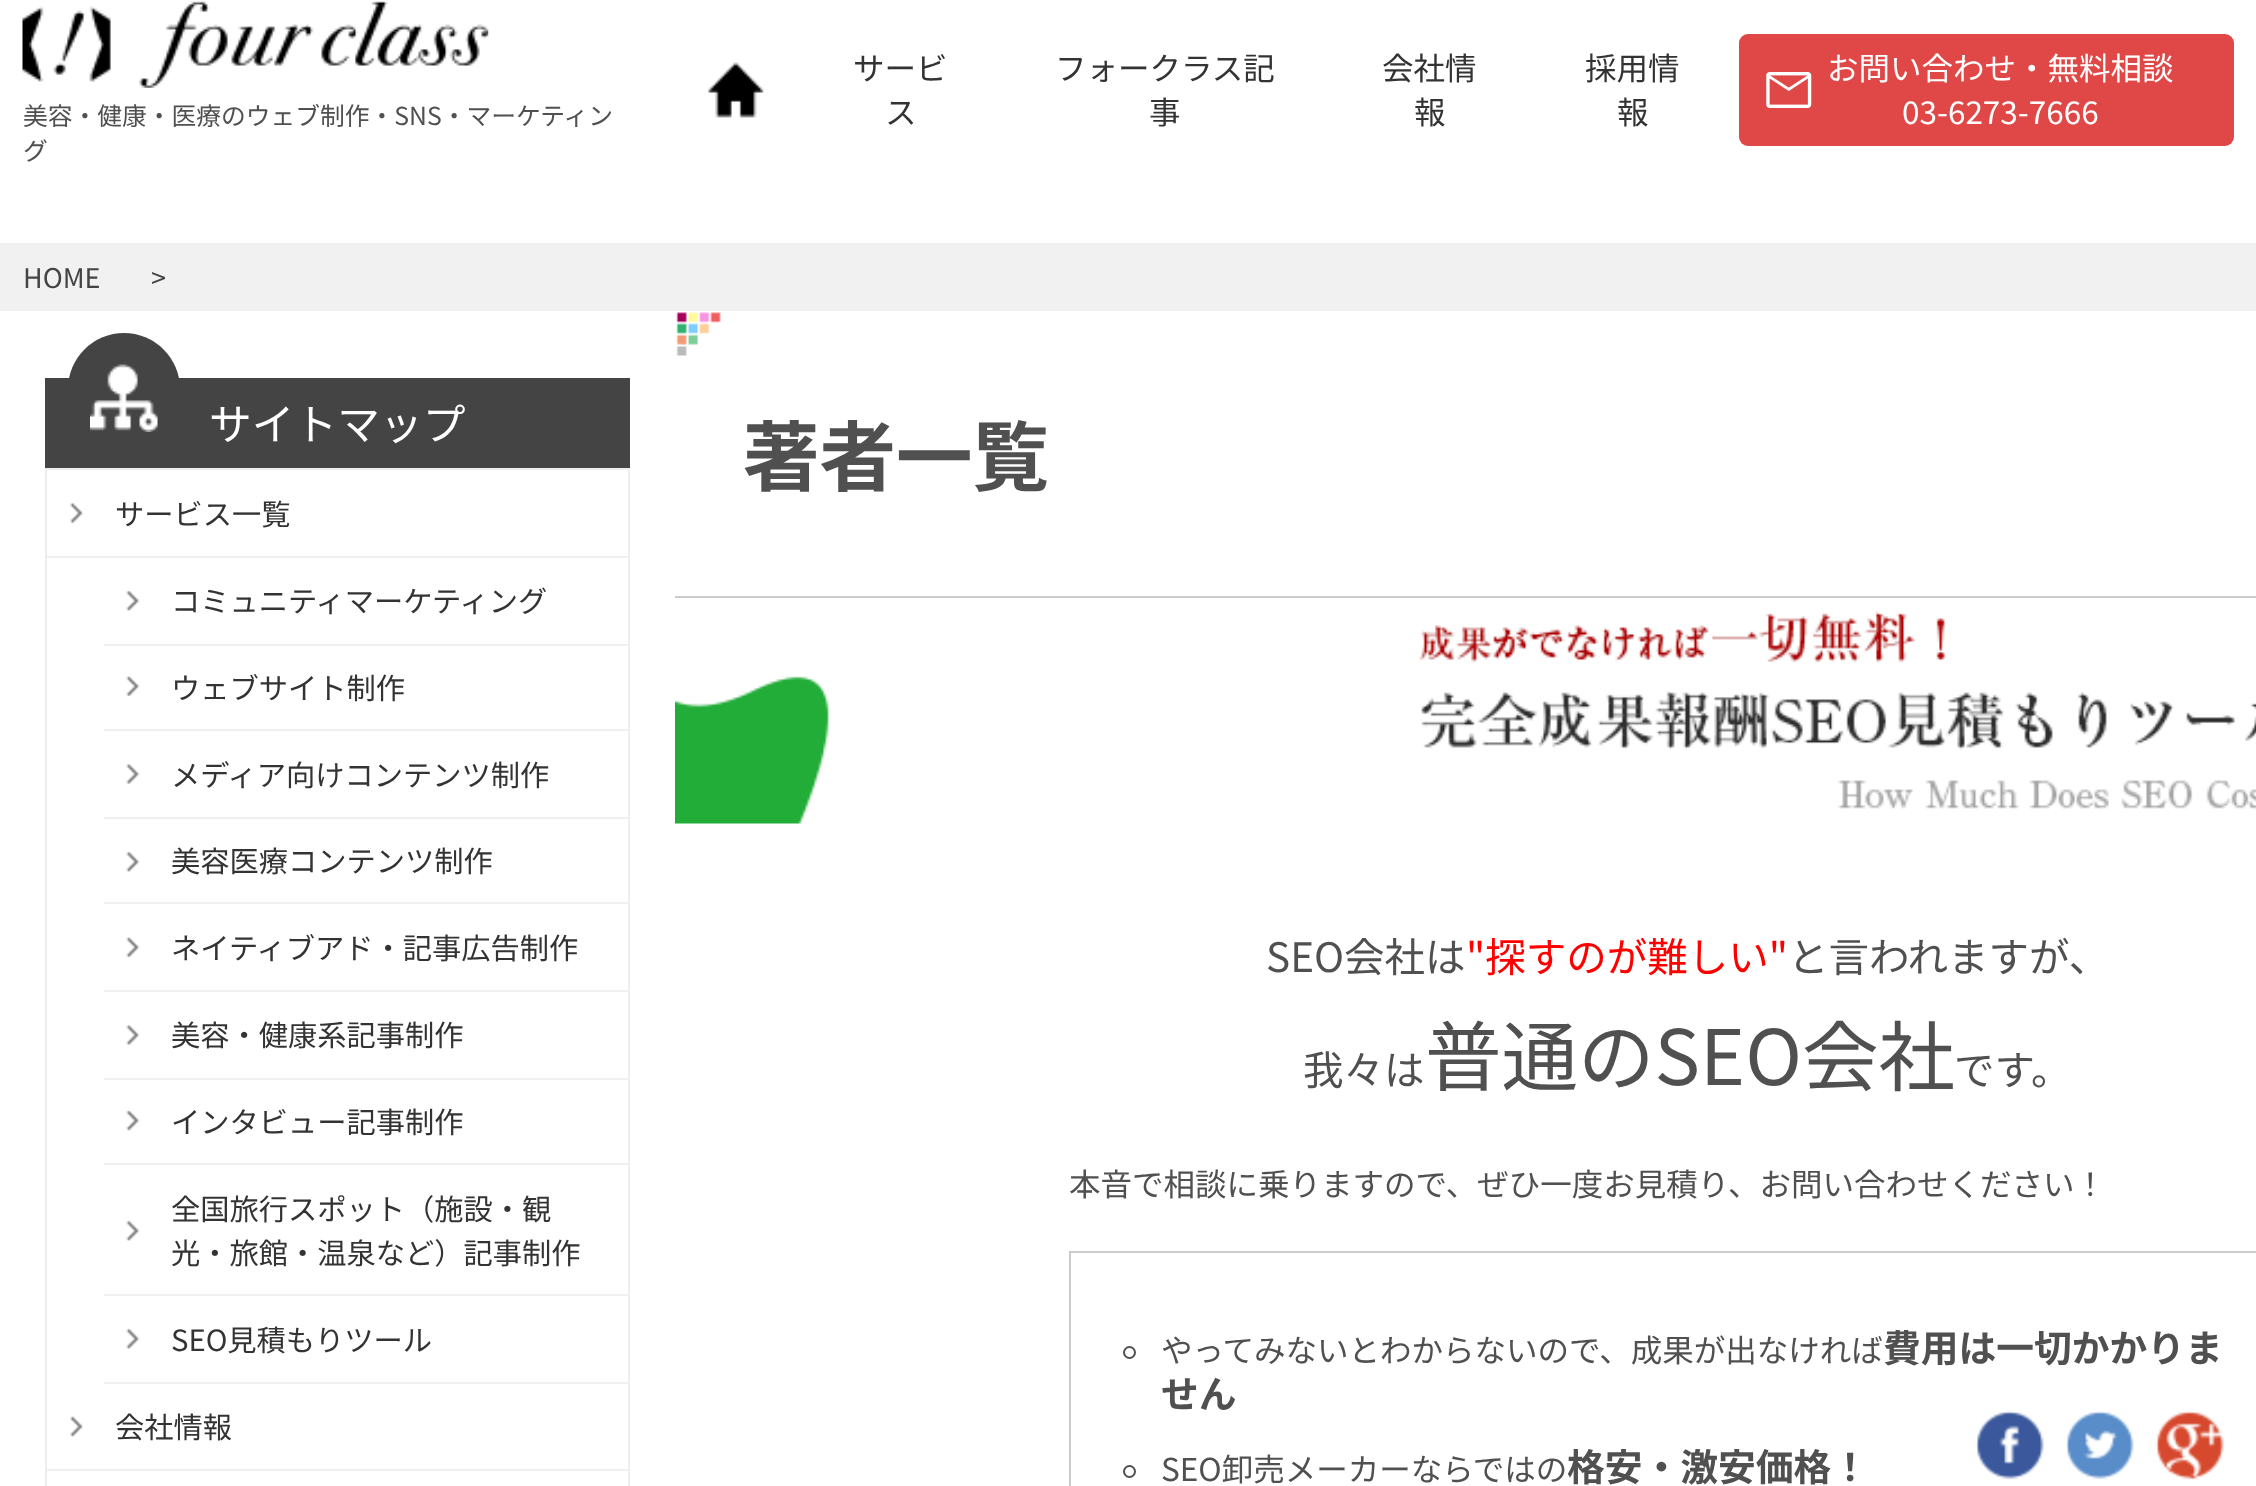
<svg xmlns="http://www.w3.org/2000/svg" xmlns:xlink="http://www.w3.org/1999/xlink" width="2256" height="1486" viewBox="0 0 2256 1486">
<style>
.cls-1{font:31.5px Noto Sans JP;fill:#333333}
.cls-2{font:31.5px Noto Sans JP;fill:#ffffff}
.cls-3{font:24.75px Noto Sans JP;fill:#505050}
.cls-4{font:27px Noto Sans JP;fill:#444444}
.cls-5{font:42.75px Noto Sans JP;fill:#ffffff}
.cls-6{font:29.25px Noto Sans JP;fill:#333333}
.cls-7{font:bold 76.5px Noto Sans JP;fill:#505050}
.cls-8{font:40.5px Noto Sans JP;fill:#505050}
.cls-9{font:40.5px Noto Sans JP;fill:#ff0000}
.cls-10{font:76.5px Noto Sans JP;fill:#505050}
.cls-11{font:31.5px Noto Sans JP;fill:#505050}
.cls-12{font:bold 37.75px Noto Sans JP;fill:#505050}
</style>
<rect width="100%" height="100%" fill="#ffffff"/>
<image xlink:href="image0.png" x="708" y="62" width="56" height="56"/>
<rect fill="#e04747" x="1739" y="34" width="495" height="112" rx="9"/>
<image xlink:href="image1.png" x="1766" y="72" width="46" height="36"/>
<image xlink:href="image2.png" x="22" y="1" width="467" height="87"/>
<rect fill="#f1f1f1" x="0" y="243" width="2256" height="68"/>
<rect fill="#444444" x="45" y="378" width="585" height="90"/>
<rect fill="#444444" x="68" y="333" width="112" height="113" rx="56"/>
<image xlink:href="image3.png" x="90" y="364" width="68" height="68"/>
<rect fill="none" stroke="#eeeeee" stroke-width="2" x="46" y="469" width="583" height="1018"/>
<image xlink:href="image4.png" x="70" y="502" width="13" height="22"/>
<rect fill="#f0f0f0" x="47" y="556" width="581" height="2"/>
<image xlink:href="image5.png" x="126" y="590" width="14" height="21"/>
<rect fill="#f0f0f0" x="104" y="644" width="524" height="2"/>
<image xlink:href="image6.png" x="126" y="675" width="14" height="22"/>
<rect fill="#f0f0f0" x="104" y="729" width="524" height="2"/>
<image xlink:href="image7.png" x="126" y="763" width="14" height="22"/>
<rect fill="#f0f0f0" x="104" y="817" width="524" height="2"/>
<image xlink:href="image5.png" x="126" y="851" width="14" height="21"/>
<rect fill="#f0f0f0" x="104" y="902" width="524" height="2"/>
<image xlink:href="image6.png" x="126" y="936" width="14" height="22"/>
<rect fill="#f0f0f0" x="104" y="990" width="524" height="2"/>
<image xlink:href="image7.png" x="126" y="1024" width="14" height="22"/>
<rect fill="#f0f0f0" x="104" y="1078" width="524" height="2"/>
<image xlink:href="image8.png" x="126" y="1110" width="14" height="21"/>
<rect fill="#f0f0f0" x="104" y="1163" width="524" height="2"/>
<image xlink:href="image5.png" x="126" y="1220" width="14" height="21"/>
<rect fill="#f0f0f0" x="104" y="1294" width="524" height="2"/>
<image xlink:href="image5.png" x="126" y="1328" width="14" height="21"/>
<rect fill="#f0f0f0" x="104" y="1382" width="524" height="2"/>
<image xlink:href="image9.png" x="70" y="1415" width="13" height="22"/>
<rect fill="#f0f0f0" x="47" y="1469" width="581" height="2"/>
<image xlink:href="image10.png" x="676" y="312" width="45" height="44"/>
<rect fill="#cccccc" x="675" y="596" width="1581" height="2"/>
<image xlink:href="image11.png" x="675" y="611" width="1581" height="213"/>
<rect fill="none" stroke="#cccccc" stroke-width="2" x="1070" y="1252" width="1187" height="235"/>
<circle fill="none" stroke="#505050" stroke-width="2" cx="1129.5" cy="1352.5" r="5.5"/>
<circle fill="none" stroke="#505050" stroke-width="2" cx="1129.5" cy="1471.5" r="5.5"/>
<image xlink:href="image12.png" x="1975" y="1410" width="70" height="70"/>
<image xlink:href="image13.png" x="2065" y="1410" width="69" height="70"/>
<image xlink:href="image14.png" x="2155" y="1410" width="70" height="70"/>
<text class="cls-1" x="853" y="80">サービ</text>
<text class="cls-1" x="885" y="124">ス</text>
<text class="cls-1" x="1055" y="80">フォークラス記</text>
<text class="cls-1" x="1149" y="124">事</text>
<text class="cls-1" x="1382" y="80">会社情</text>
<text class="cls-1" x="1414" y="124">報</text>
<text class="cls-1" x="1585" y="80">採用情</text>
<text class="cls-1" x="1617" y="124">報</text>
<text class="cls-2" x="1827" y="80">お問い合わせ・無料相談</text>
<text class="cls-2" x="1902" y="124">03-6273-7666</text>
<text class="cls-3"><tspan x="23" y="125">美容・健康・医療のウェブ制作・SNS・マーケティン</tspan><tspan x="23" y="160">グ</tspan></text>
<text class="cls-4" x="23" y="288">HOME</text>
<text class="cls-4" x="151" y="288">&gt;</text>
<text class="cls-5" x="209" y="440">サイトマップ</text>
<text class="cls-6" x="115" y="525">サービス一覧</text>
<text class="cls-6" x="171" y="612">コミュニティマーケティング</text>
<text class="cls-6" x="171" y="699">ウェブサイト制作</text>
<text class="cls-6" x="171" y="786">メディア向けコンテンツ制作</text>
<text class="cls-6" x="171" y="872">美容医療コンテンツ制作</text>
<text class="cls-6" x="171" y="959">ネイティブアド・記事広告制作</text>
<text class="cls-6" x="171" y="1046">美容・健康系記事制作</text>
<text class="cls-6" x="171" y="1133">インタビュー記事制作</text>
<text class="cls-6"><tspan x="171" y="1220">全国旅行スポット（施設・観</tspan><tspan x="171" y="1264">光・旅館・温泉など）記事制作</tspan></text>
<text class="cls-6" x="171" y="1351">SEO見積もりツール</text>
<text class="cls-6" x="115" y="1438">会社情報</text>
<text class="cls-7" x="743" y="485">著者一覧</text>
<text class="cls-8" x="1266" y="972">SEO会社は</text>
<text class="cls-9" x="1466" y="972">"探すのが難しい"</text>
<text class="cls-8" x="1788" y="972">と言われますが、</text>
<text class="cls-8" x="1303" y="1085">我々は</text>
<text class="cls-10" x="1425" y="1085">普通のSEO会社</text>
<text class="cls-8" x="1954" y="1085">です。</text>
<text class="cls-11" x="1069" y="1196">本音で相談に乗りますので、ぜひ一度お見積り、お問い合わせください！</text>
<text class="cls-11" x="1161" y="1362">やってみないとわからないので、成果が出なければ</text>
<text class="cls-12" x="1883" y="1362">費用は一切かかりま</text>
<text class="cls-12" x="1161" y="1408">せん</text>
<text class="cls-11" x="1161" y="1481">SEO卸売メーカーならではの</text>
<text class="cls-12" x="1567" y="1481">格安・激安価格！</text>
</svg>
